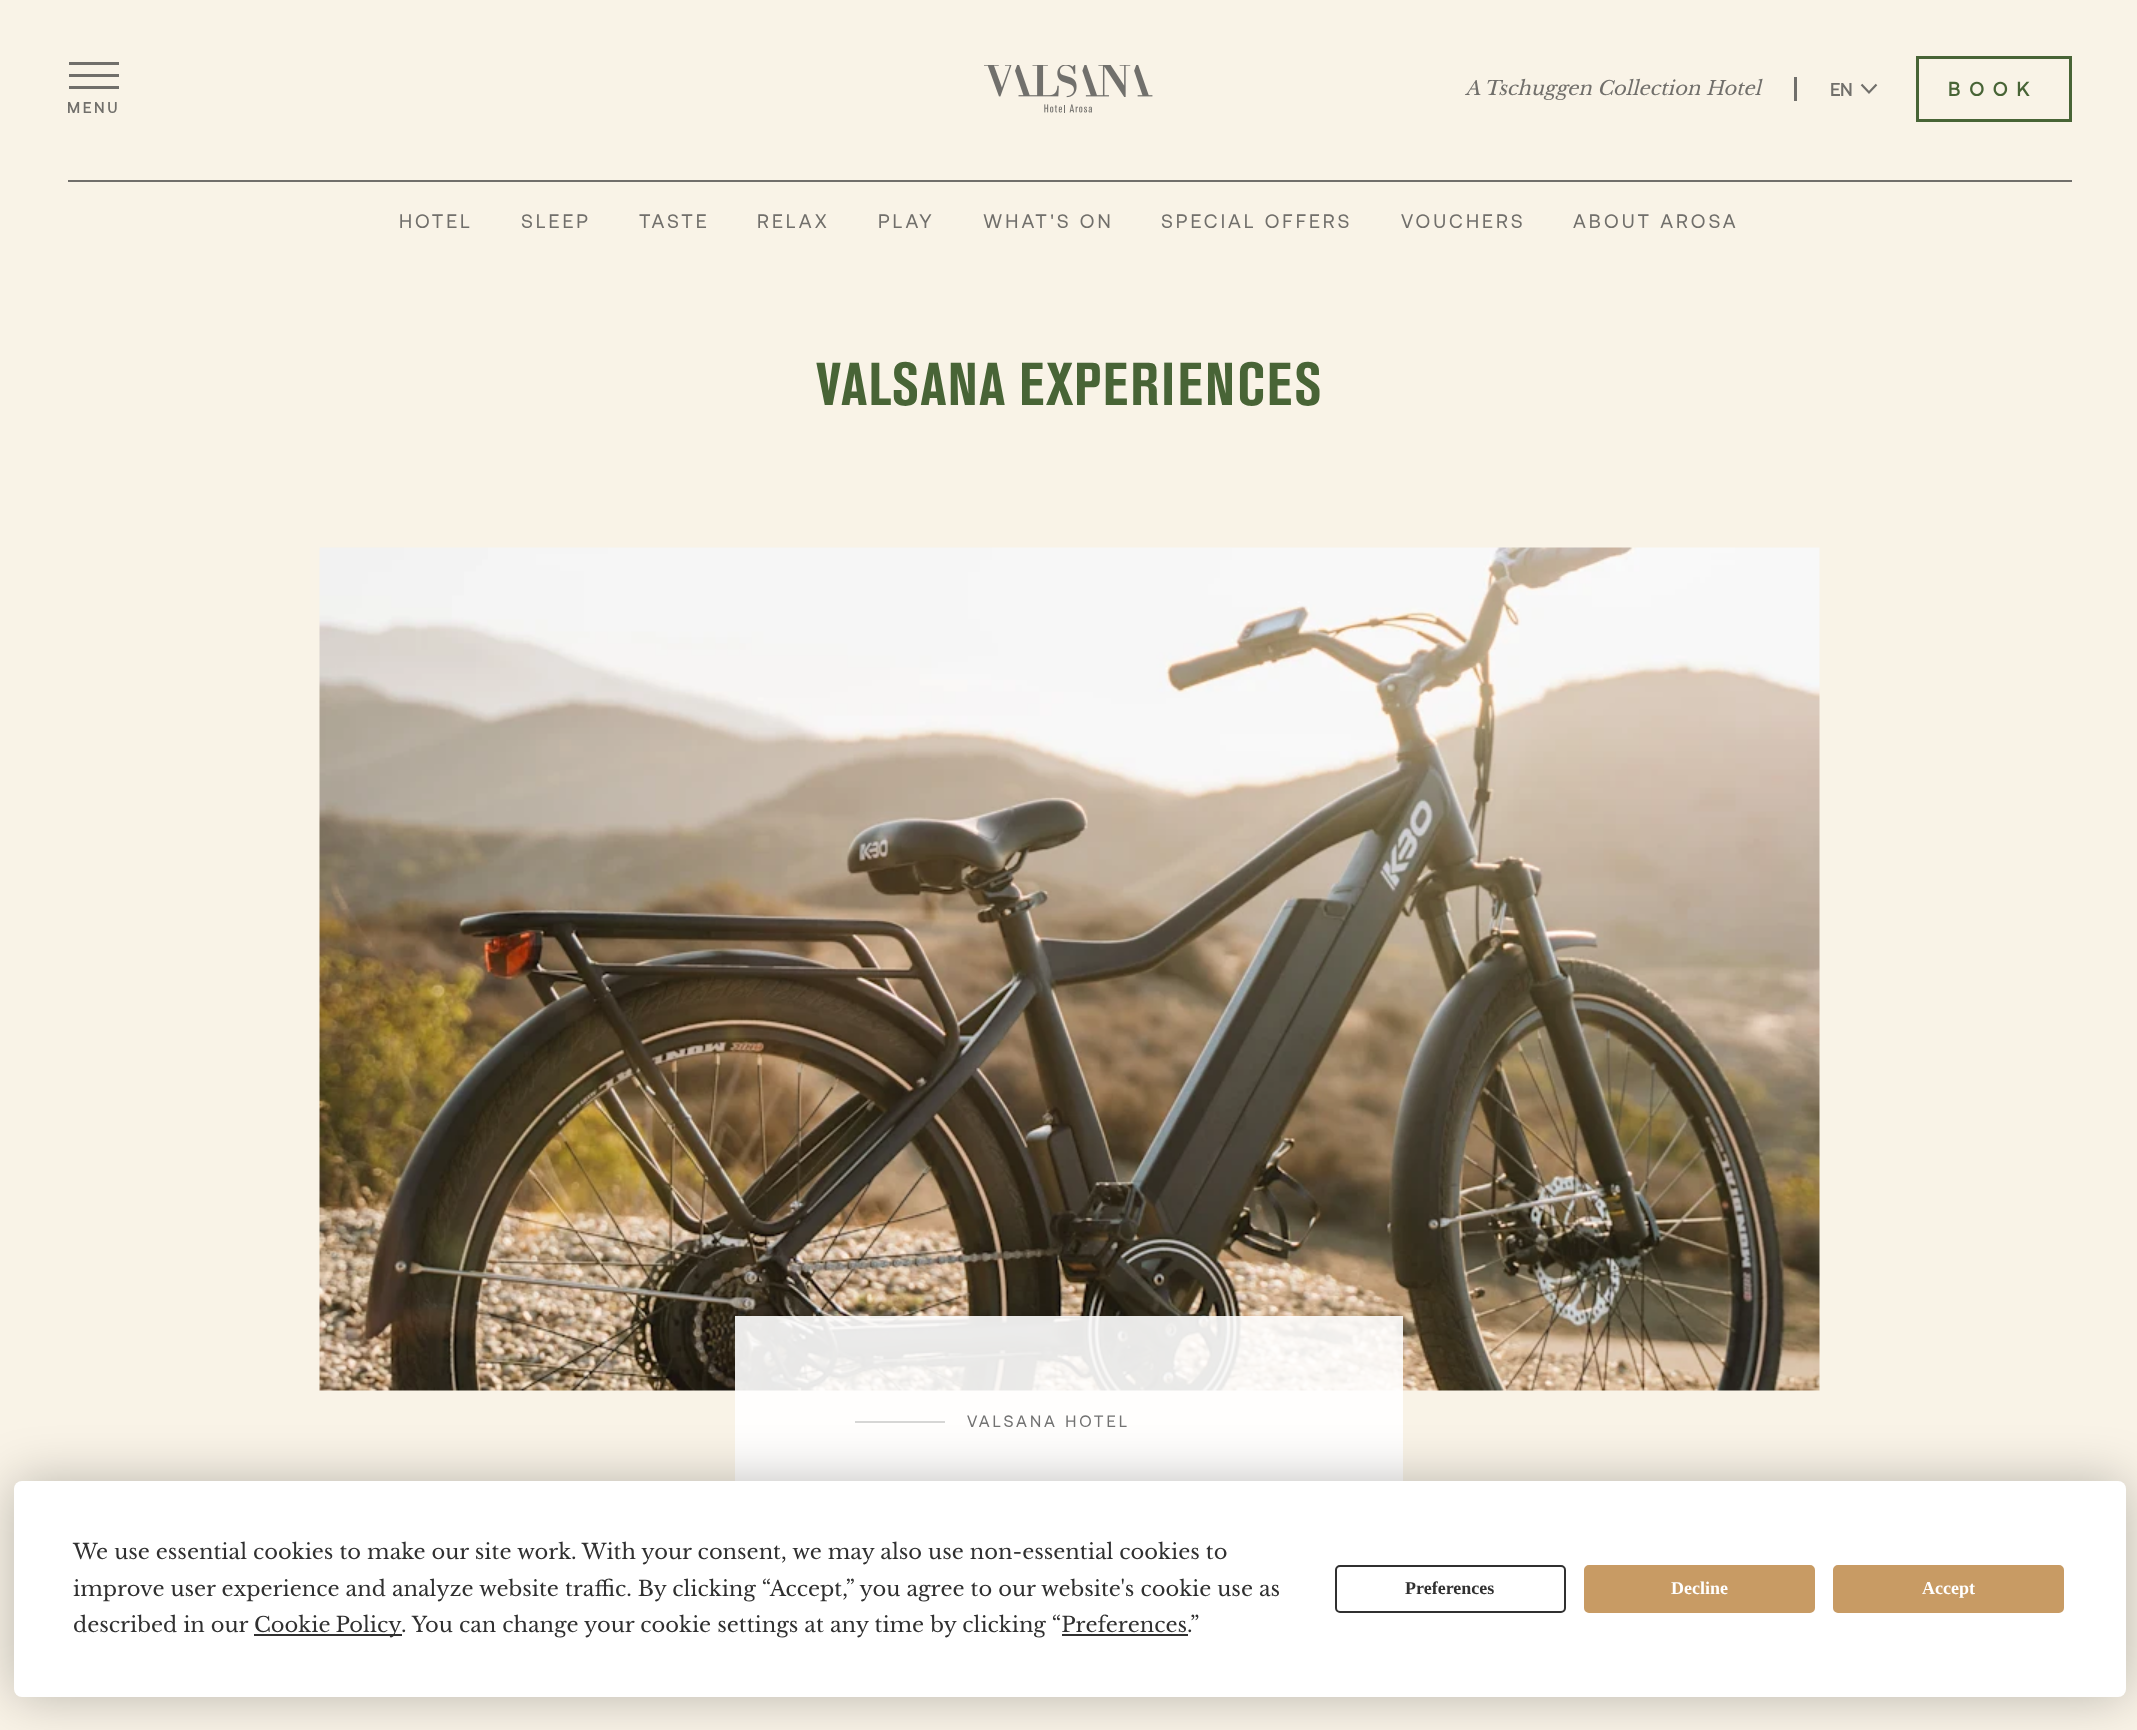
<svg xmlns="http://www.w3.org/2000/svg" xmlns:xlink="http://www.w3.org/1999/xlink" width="2137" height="1730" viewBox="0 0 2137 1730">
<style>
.cls-1{font:italic 19.5px Libre Baskerville;fill:#716f6b}
.cls-2{font:bold 18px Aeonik;fill:#716f6b}
.cls-3{font:bold 19.5px Aeonik;letter-spacing:9px;fill:#486436}
.cls-4{font:bold 15px Aeonik;letter-spacing:3px;fill:#716f6b}
.cls-5{font:19.5px Aeonik;letter-spacing:3px;fill:#716f6b}
.cls-6{font:bold 60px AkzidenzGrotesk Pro;fill:#486436}
.cls-7{font:16.5px Aeonik;letter-spacing:3px;fill:#727272}
.cls-8{font:21px Libre Baskerville;fill:#303030}
.cls-9{font:bold 18px Liberation Serif;fill:#303030}
.cls-10{font:bold 18px Liberation Serif;fill:#ffffff}
</style>
<rect width="100%" height="100%" fill="#f9f3e7"/>
<image xlink:href="image0.png" x="984" y="65" width="169" height="48"/>
<rect fill="#716f6b" x="1794" y="77" width="3" height="24"/>
<path fill="none" stroke="#716f6b" stroke-width="2.2" d="M1876.5 84.5L1869 92.5L1861.5 84.5"/>
<rect fill="none" stroke="#486436" stroke-width="3" x="1917.5" y="57.5" width="153" height="63"/>
<rect fill="#716f6b" x="69" y="62" width="50" height="3"/>
<rect fill="#716f6b" x="69" y="74" width="50" height="3"/>
<rect fill="#716f6b" x="69" y="86" width="50" height="3"/>
<rect fill="#716f6b" x="68" y="180" width="2004" height="2"/>
<image xlink:href="image1.png" x="319" y="547" width="1501" height="844"/>
<rect fill="#ffffff" fill-opacity="0.9" x="735" y="1316" width="668" height="165"/>
<rect fill="#d6d6d5" x="855" y="1421" width="90" height="2"/>
<rect fill="#000000" fill-opacity="0.25" filter="blur(26px)" x="14" y="1481" width="2112" height="216" rx="8"/>
<rect fill="#ffffff" x="14" y="1481" width="2112" height="216" rx="8"/>
<rect fill="#303030" x="254" y="1634" width="148" height="2"/>
<rect fill="#303030" x="1062" y="1634" width="126" height="2"/>
<rect fill="none" stroke="#303030" stroke-width="2" x="1336" y="1566" width="229" height="46" rx="4"/>
<rect fill="#c89b64" stroke="#c89b64" stroke-width="2" x="1585" y="1566" width="229" height="46" rx="4"/>
<rect fill="#c89b64" stroke="#c89b64" stroke-width="2" x="1834" y="1566" width="229" height="46" rx="4"/>
<text class="cls-1" x="1465" y="95">A Tschuggen Collection Hotel</text>
<text class="cls-2" x="1830" y="96">EN</text>
<text class="cls-3" x="1948" y="96">BOOK</text>
<text class="cls-4" x="67" y="113">MENU</text>
<text class="cls-5" x="399" y="228">HOTEL</text>
<text class="cls-5" x="521" y="228">SLEEP</text>
<text class="cls-5" x="639" y="228">TASTE</text>
<text class="cls-5" x="757" y="228">RELAX</text>
<text class="cls-5" x="878" y="228">PLAY</text>
<text class="cls-5" x="983" y="228">WHAT'S ON</text>
<text class="cls-5" x="1161" y="228">SPECIAL OFFERS</text>
<text class="cls-5" x="1401" y="228">VOUCHERS</text>
<text class="cls-5" x="1573" y="228">ABOUT AROSA</text>
<text class="cls-6" x="816" y="405">VALSANA EXPERIENCES</text>
<text class="cls-7" x="967" y="1427">VALSANA HOTEL</text>
<text class="cls-8"><tspan x="73" y="1559">We use essential cookies to make our site work. With your consent, we may also use non-essential cookies to</tspan><tspan x="73" y="1596">improve user experience and analyze website traffic. By clicking “Accept,” you agree to our website's cookie use as</tspan><tspan x="73" y="1632">described in our</tspan></text>
<text class="cls-8" x="254" y="1632" word-spacing="-1">Cookie Policy</text>
<text class="cls-8" x="401" y="1632">. You can change your cookie settings at any time by clicking “Preferences.”</text>
<text class="cls-9" x="1405" y="1594">Preferences</text>
<text class="cls-10" x="1671" y="1594">Decline</text>
<text class="cls-10" x="1922" y="1594">Accept</text>
</svg>
